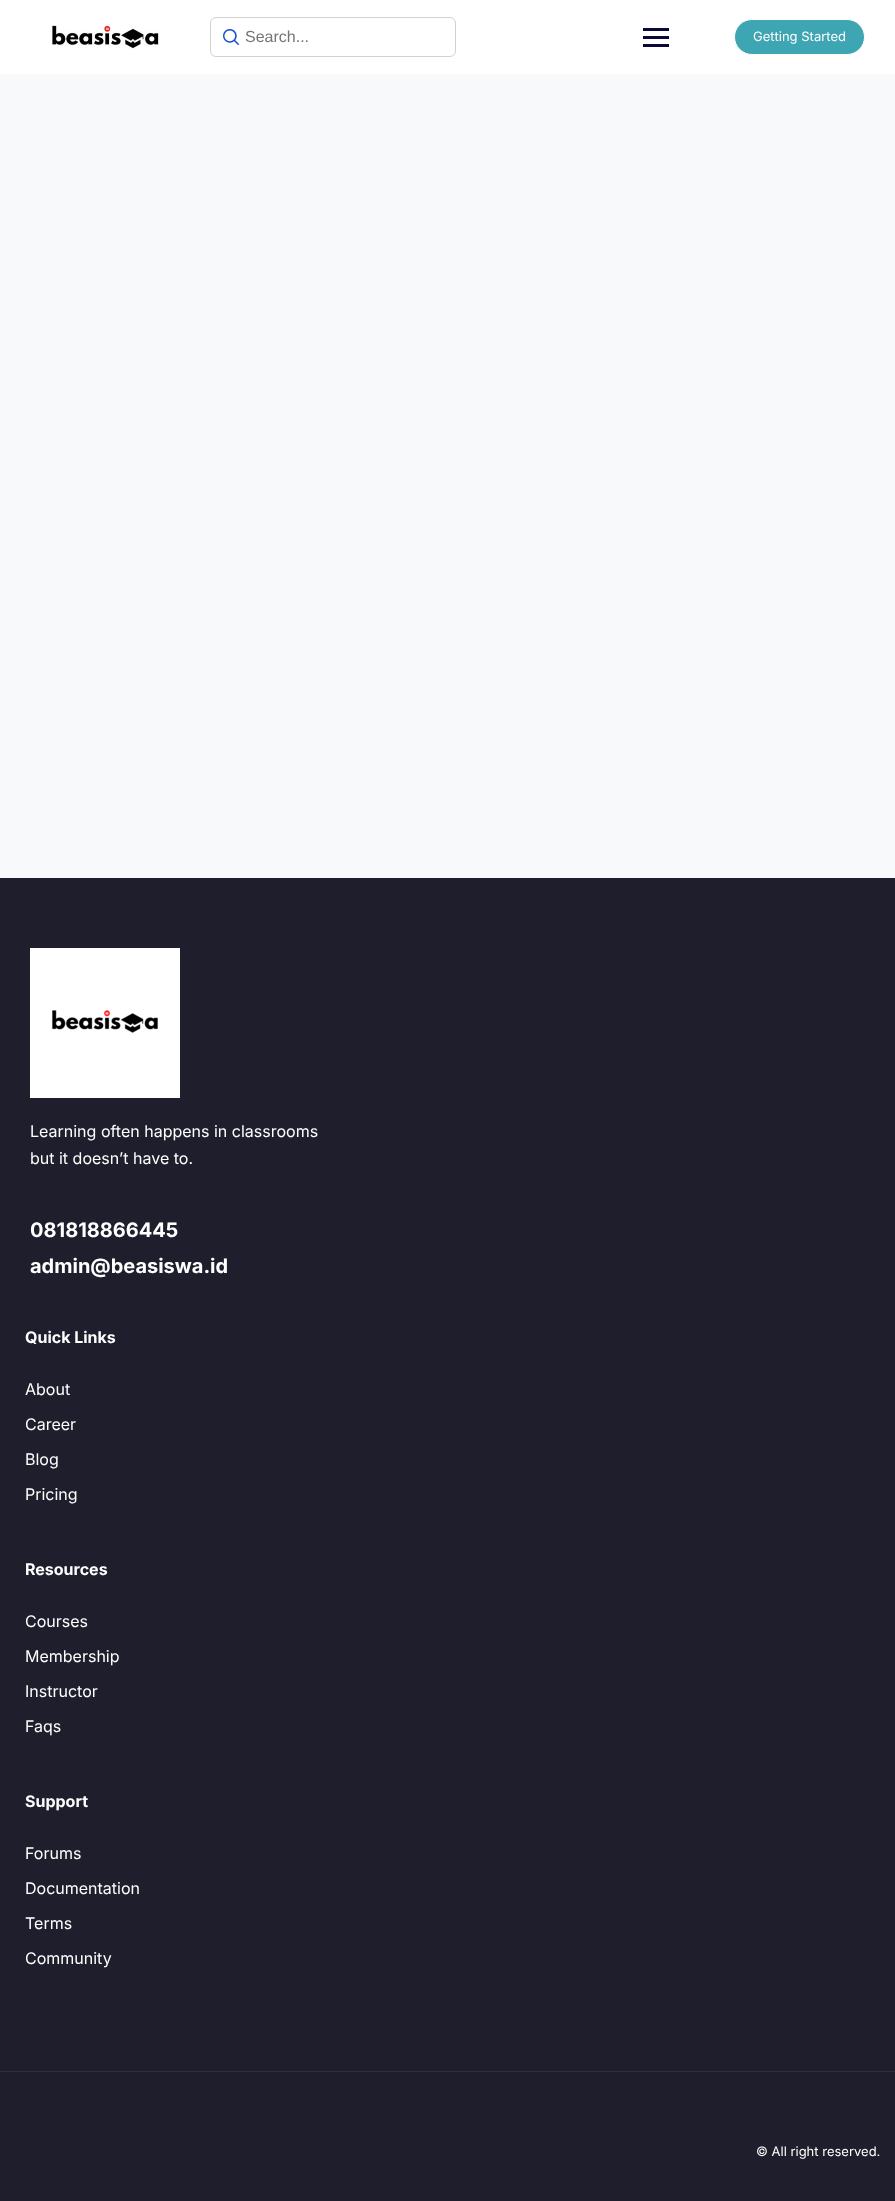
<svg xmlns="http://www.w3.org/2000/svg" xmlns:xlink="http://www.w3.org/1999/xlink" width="895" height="2201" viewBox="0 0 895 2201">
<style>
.cls-1{font:16px Liberation Sans;fill:#757575}
.cls-2{font:13px Inter;fill:#ffffff}
.cls-3{font:16px Inter;fill:#ffffff}
.cls-4{font:bold 20px Inter;fill:#ffffff}
.cls-5{font:bold 16px Inter;fill:#ffffff}
</style>
<rect width="100%" height="100%" fill="#f7f9fa"/>
<rect fill="#ffffff" x="0" y="0" width="895" height="74"/>
<image xlink:href="image0.png" x="52" y="25" width="107" height="24"/>
<image xlink:href="image1.png" x="223" y="29" width="16" height="16"/>
<rect fill="none" stroke="#d2d2d2" x="210.5" y="17.5" width="245" height="39" rx="5.5"/>
<rect fill="#0a083b" x="643" y="36" width="26" height="3"/>
<rect fill="#0a083b" x="643" y="28" width="26" height="3"/>
<rect fill="#0a083b" x="643" y="44" width="26" height="3"/>
<rect fill="#3ea5b3" stroke="#ffffff" x="734.5" y="19.5" width="130" height="35" rx="17.5"/>
<rect fill="#1e1e2c" x="0" y="878" width="895" height="1323"/>
<rect fill="#30303d" x="0" y="2071" width="895" height="1"/>
<image xlink:href="image2.png" x="30" y="948" width="150" height="150"/>
<text class="cls-1" x="245" y="42">Search...</text>
<text class="cls-2" x="753" y="41">Getting Started</text>
<text class="cls-3"><tspan x="30" y="1137">Learning often happens in classrooms</tspan><tspan x="30" y="1164">but it doesn’t have to.</tspan></text>
<text class="cls-4"><tspan x="30" y="1237">081818866445</tspan><tspan x="30" y="1273">admin@beasiswa.id</tspan></text>
<text class="cls-5" x="25" y="1343">Quick Links</text>
<text class="cls-3" x="25" y="1395">About</text>
<text class="cls-3" x="25" y="1430">Career</text>
<text class="cls-3" x="25" y="1465">Blog</text>
<text class="cls-3" x="25" y="1500">Pricing</text>
<text class="cls-5" x="25" y="1575">Resources</text>
<text class="cls-3" x="25" y="1627">Courses</text>
<text class="cls-3" x="25" y="1662">Membership</text>
<text class="cls-3" x="25" y="1697">Instructor</text>
<text class="cls-3" x="25" y="1732">Faqs</text>
<text class="cls-5" x="25" y="1807">Support</text>
<text class="cls-3" x="25" y="1859">Forums</text>
<text class="cls-3" x="25" y="1894">Documentation</text>
<text class="cls-3" x="25" y="1929">Terms</text>
<text class="cls-3" x="25" y="1964">Community</text>
<text class="cls-2" x="756" y="2156">© All right reserved.</text>
</svg>
